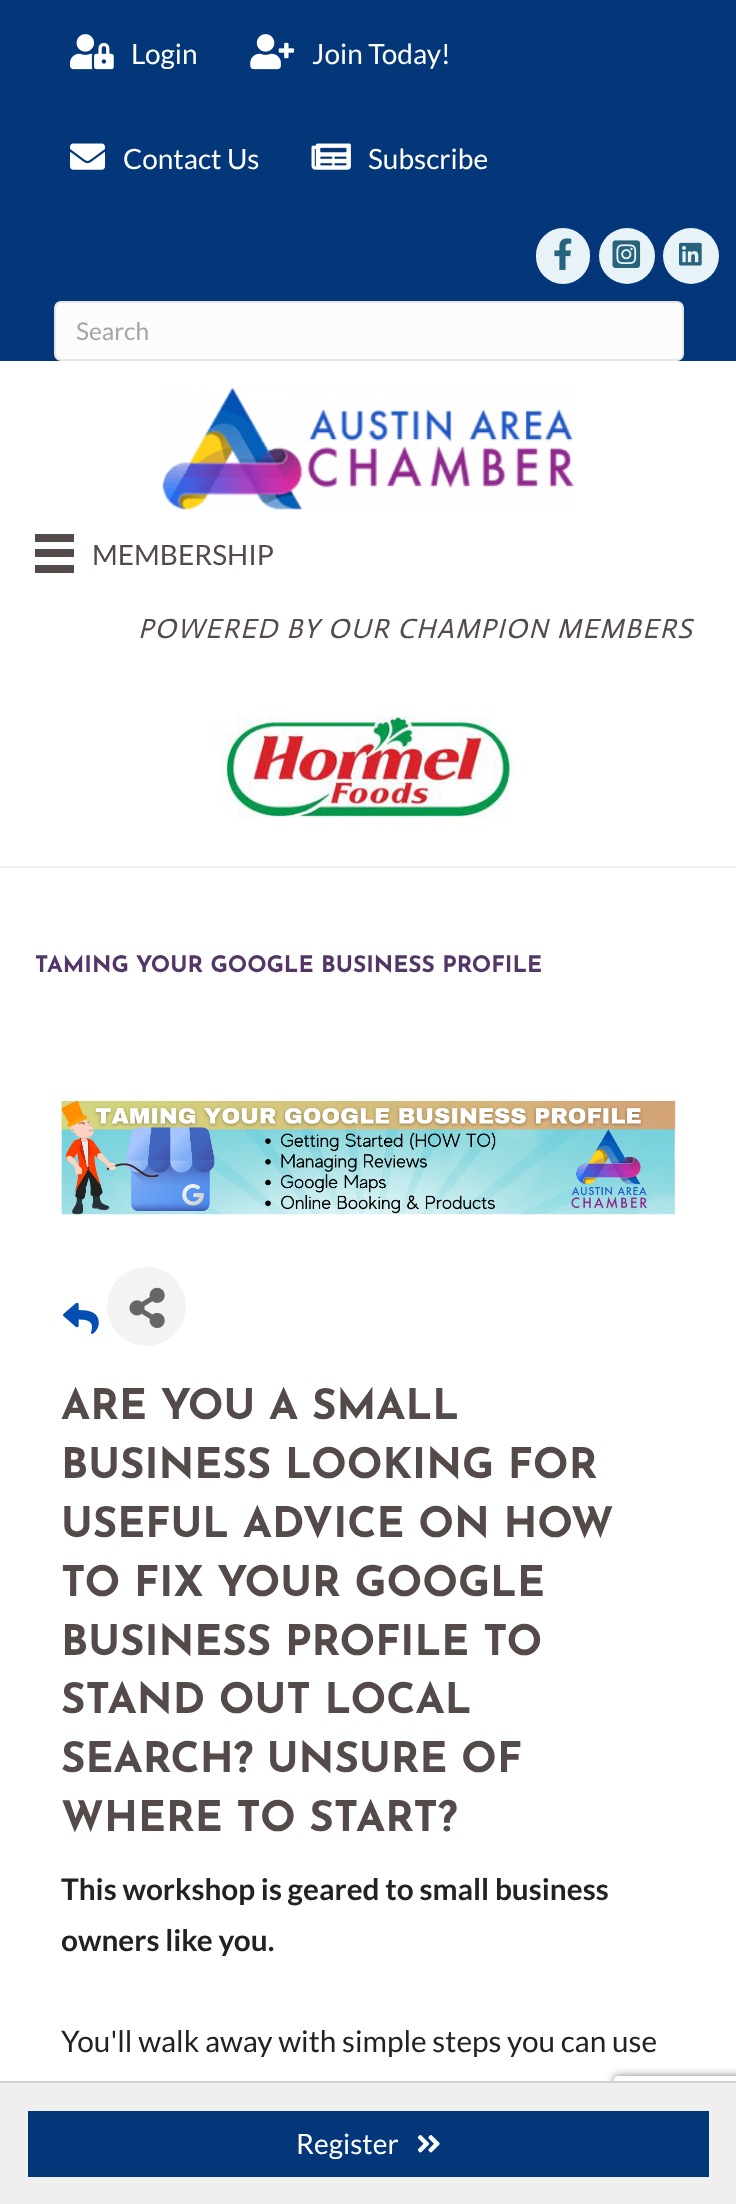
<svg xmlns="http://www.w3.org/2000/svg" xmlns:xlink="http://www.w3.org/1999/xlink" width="736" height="2204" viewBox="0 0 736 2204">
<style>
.cls-1{font:28px Lato;fill:#ffffff}
.cls-2{font:24.5px Lato;fill:#a5a5a5}
.cls-3{font:28px Lato;fill:#544a4a}
.cls-4{font:italic 28px Actor;letter-spacing:1.4px;fill:#544a4a}
.cls-5{font:100 22.75px Josefin Sans;fill:#533666}
.cls-6{font:100 42px Josefin Sans;fill:#544a4a}
.cls-7{font:bold 29.75px Lato;fill:#222222}
.cls-8{font:29.75px Lato;fill:#222222}
</style>
<defs>
<clipPath id="clip1"><path d="M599 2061H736V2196H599ZM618 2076H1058C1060 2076 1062 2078 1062 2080V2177C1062 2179 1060 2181 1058 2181H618C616 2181 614 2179 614 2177V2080C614 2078 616 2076 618 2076Z" clip-rule="evenodd"/></clipPath>
</defs>
<rect width="100%" height="100%" fill="#ffffff"/>
<rect fill="#03377a" x="0" y="0" width="736" height="361"/>
<image xlink:href="image0.png" x="70" y="34" width="44" height="36"/>
<image xlink:href="image1.png" x="250" y="34" width="44" height="36"/>
<image xlink:href="image2.png" x="70" y="143" width="35" height="27"/>
<image xlink:href="image3.png" x="311" y="143" width="40" height="27"/>
<rect fill="#e8f3f7" x="536" y="228" width="54" height="56" rx="27"/>
<image xlink:href="image4.png" x="554" y="238" width="18" height="32"/>
<circle fill="#e8f3f7" cx="627" cy="256" r="28"/>
<image xlink:href="image5.png" x="612" y="240" width="29" height="28"/>
<circle fill="#e8f3f7" cx="691" cy="256" r="28"/>
<image xlink:href="image6.png" x="679" y="242" width="23" height="24"/>
<rect fill="#fcfcfc" stroke="#e6e6e6" stroke-width="2" x="55" y="302" width="628" height="58" rx="6"/>
<rect fill="#efefef" x="0" y="866" width="736" height="2"/>
<image xlink:href="image7.png" x="162" y="387" width="412" height="123"/>
<rect fill="#544a4a" x="35" y="534" width="39" height="8"/>
<rect fill="#544a4a" x="35" y="549" width="39" height="8"/>
<rect fill="#544a4a" x="35" y="565" width="39" height="8"/>
<image xlink:href="image8.png" x="220" y="715" width="295" height="104"/>
<image xlink:href="image9.png" x="61" y="1100" width="615" height="115"/>
<image xlink:href="image10.png" x="63" y="1302" width="36" height="32"/>
<circle fill="#f3f3f3" cx="146.5" cy="1306.5" r="39.5"/>
<image xlink:href="image11.png" x="129" y="1287" width="36" height="41"/>
<g clip-path="url(#clip1)">
<rect fill="#808080" filter="blur(4.5px)" x="614" y="2076" width="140" height="105" rx="4"/>
</g>
<rect fill="#efefef" x="0" y="2083" width="736" height="121"/>
<rect fill="#d1d1d1" x="0" y="2081" width="736" height="2"/>
<rect fill="#03377a" x="28" y="2111" width="681" height="66"/>
<image xlink:href="image12.png" x="417" y="2135" width="23" height="18"/>
<text class="cls-1" x="131" y="64">Login</text>
<text class="cls-1" x="312" y="64">Join Today!</text>
<text class="cls-1" x="123" y="169">Contact Us</text>
<text class="cls-1" x="368" y="169">Subscribe</text>
<text class="cls-2" x="76" y="340">Search</text>
<text class="cls-3" x="92" y="565">MEMBERSHIP</text>
<text class="cls-4" x="138" y="638">POWERED BY OUR CHAMPION MEMBERS</text>
<text class="cls-5" x="35" y="972">TAMING YOUR GOOGLE BUSINESS PROFILE</text>
<text class="cls-6"><tspan x="61" y="1419">ARE YOU A SMALL</tspan><tspan x="61" y="1478">BUSINESS LOOKING FOR</tspan><tspan x="61" y="1537">USEFUL ADVICE ON HOW</tspan><tspan x="61" y="1596">TO FIX YOUR GOOGLE</tspan><tspan x="61" y="1655">BUSINESS PROFILE TO</tspan><tspan x="61" y="1713">STAND OUT LOCAL</tspan><tspan x="61" y="1772">SEARCH? UNSURE OF</tspan><tspan x="61" y="1831">WHERE TO START?</tspan></text>
<text class="cls-7"><tspan x="61" y="1900">This workshop is geared to small business</tspan><tspan x="61" y="1951">owners like you.</tspan></text>
<text class="cls-8" x="61" y="2052">You'll walk away with simple steps you can use</text>
<text class="cls-1" x="296" y="2154">Register</text>
</svg>
